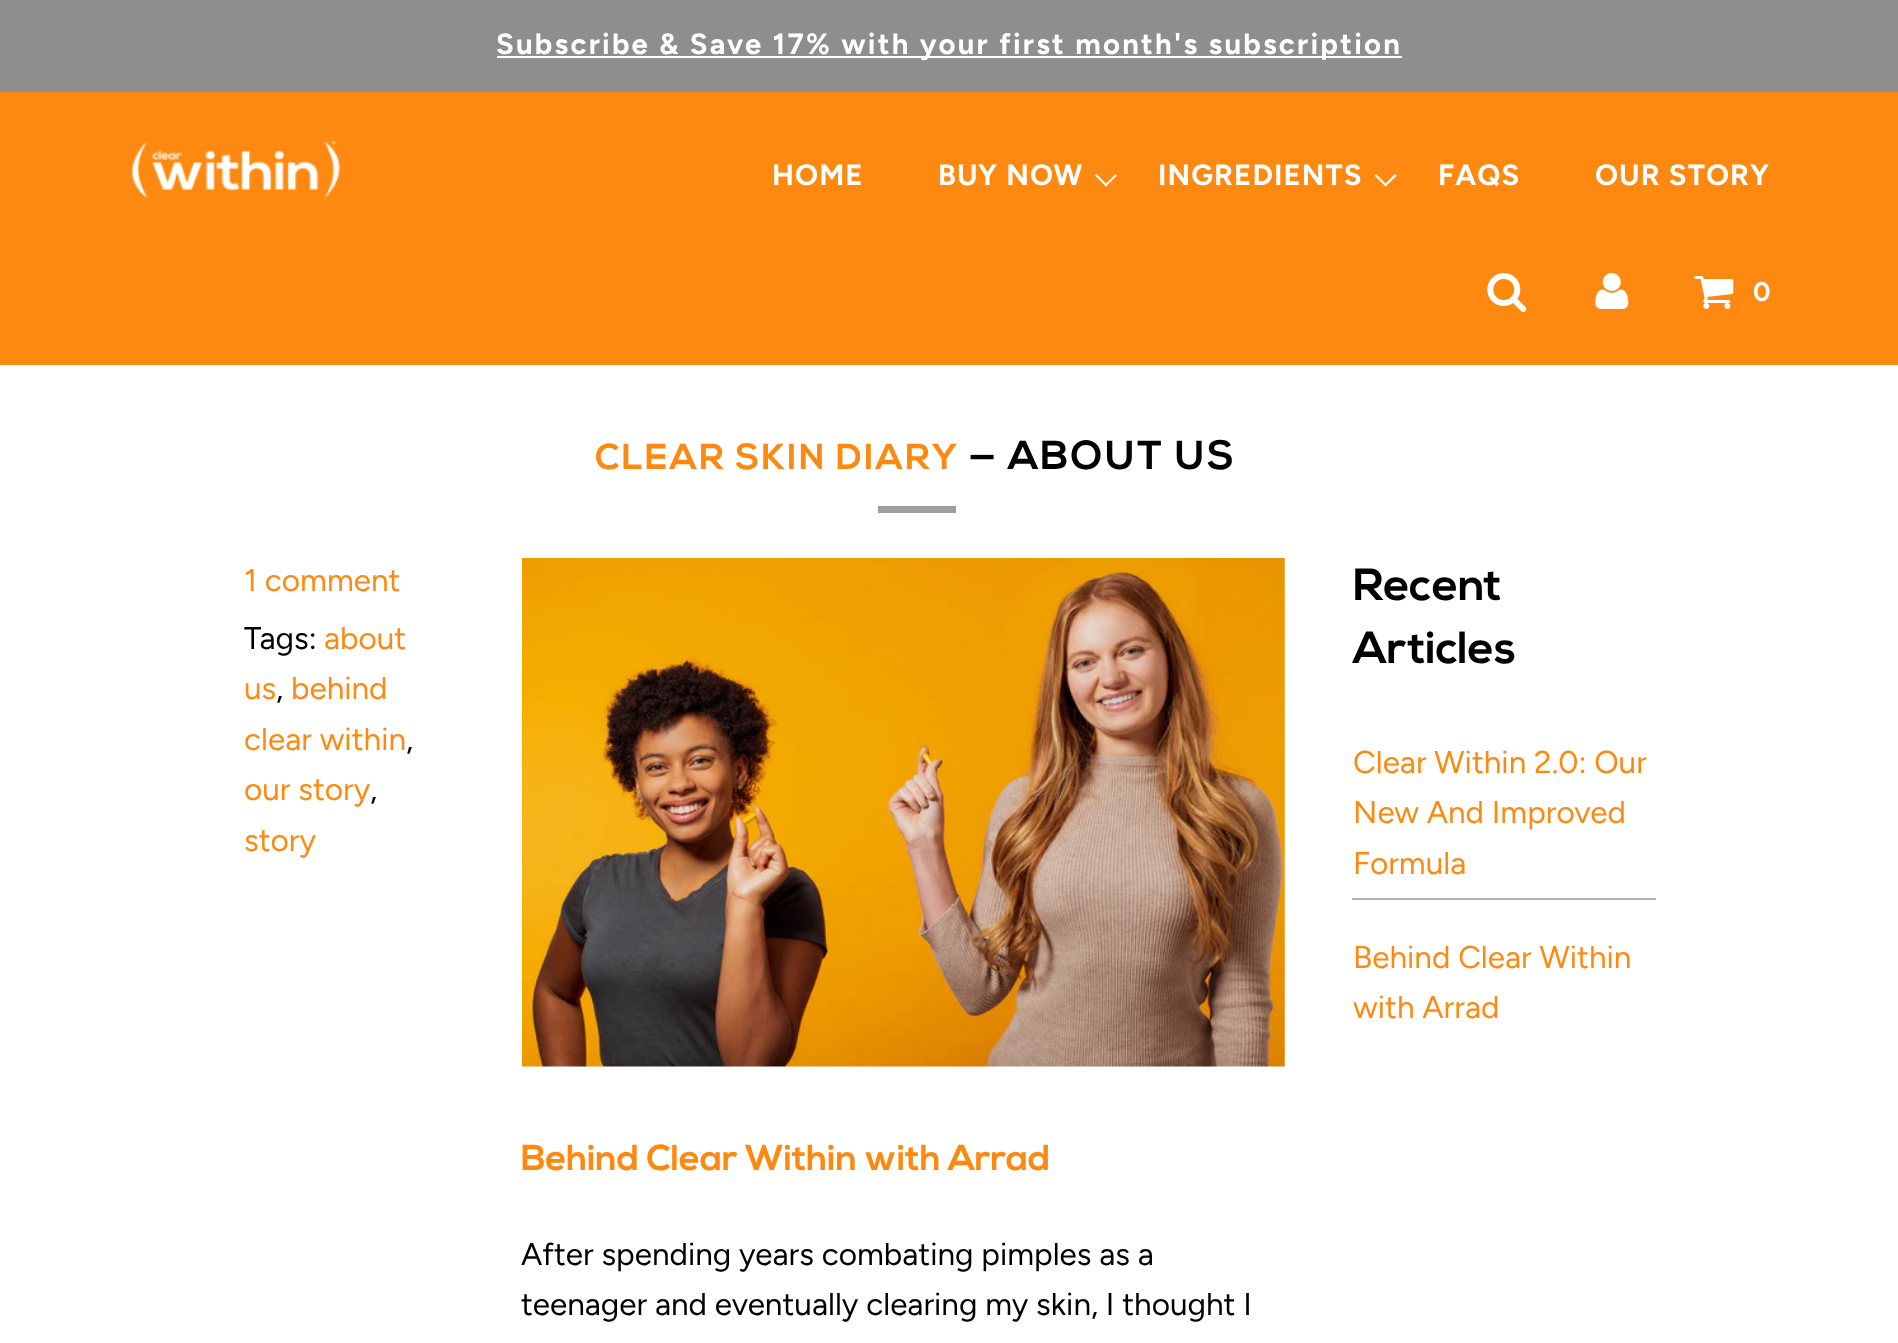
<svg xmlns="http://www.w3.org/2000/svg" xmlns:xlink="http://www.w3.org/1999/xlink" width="1898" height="1343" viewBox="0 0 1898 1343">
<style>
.cls-1{font:bold 29.25px Figtree;letter-spacing:2.25px;fill:#ffffff}
.cls-2{font:bold 29.25px Figtree;letter-spacing:1.1px;fill:#ffffff}
.cls-3{font:bold 27px Figtree;fill:#ffffff}
.cls-4{font:bold 36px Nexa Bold;letter-spacing:2.25px;fill:#fe8910}
.cls-5{font:bold 40.5px Nexa Bold;letter-spacing:2.25px;fill:#000000}
.cls-6{font:31.5px Figtree;fill:#fe8910}
.cls-7{font:31.5px Figtree;fill:#000000}
.cls-8{font:bold 36px Nexa Bold;fill:#fe8910}
.cls-9{font:bold 45px Nexa Bold;fill:#000000}
</style>
<rect width="100%" height="100%" fill="#ffffff"/>
<rect fill="#8e8e8e" x="0" y="0" width="1898" height="92"/>
<rect fill="#ffffff" x="497" y="56" width="905" height="2"/>
<rect fill="#fe8910" x="0" y="92" width="1898" height="273"/>
<image xlink:href="image0.png" x="131" y="140" width="210" height="59"/>
<path fill="#ffffff" d="M1115.5 174L1117 175.5L1106 186.5L1104.5 185Z"/>
<path fill="#ffffff" d="M1096.5 174L1107.5 185L1106 186.5L1095 175.5Z"/>
<path fill="#ffffff" d="M1395 174L1397 175.5L1385.5 186.5L1384 185Z"/>
<path fill="#ffffff" d="M1376 174L1387 185L1385.5 186.5L1374.5 175.5Z"/>
<image xlink:href="image1.png" x="1487" y="273" width="40" height="39"/>
<image xlink:href="image2.png" x="1595" y="273" width="34" height="36"/>
<image xlink:href="image3.png" x="1694" y="276" width="40" height="33"/>
<rect fill="#9e9e9e" x="878" y="506" width="78" height="7"/>
<image xlink:href="image4.png" x="522" y="558" width="763" height="509"/>
<rect fill="#b3b3b3" x="1352" y="898" width="304" height="2"/>
<text class="cls-1" x="496" y="54">Subscribe &amp; Save 17% with your first month's subscription</text>
<text class="cls-2" x="772" y="185">HOME</text>
<text class="cls-2" x="938" y="185">BUY NOW</text>
<text class="cls-2" x="1158" y="185">INGREDIENTS</text>
<text class="cls-2" x="1438" y="185">FAQS</text>
<text class="cls-2" x="1595" y="185">OUR STORY</text>
<text class="cls-3" x="1753" y="301">0</text>
<text class="cls-4" x="595" y="469">CLEAR SKIN DIARY</text>
<text class="cls-5" x="970" y="469">— ABOUT US</text>
<text class="cls-6" x="244" y="591">1 comment</text>
<text class="cls-7" x="244" y="649">Tags:</text>
<text class="cls-6" x="324" y="649">about</text>
<text class="cls-6" x="244" y="699">us</text>
<text class="cls-7" x="276" y="699">,</text>
<text class="cls-6" x="291" y="699">behind</text>
<text class="cls-6" x="244" y="750">clear within</text>
<text class="cls-7" x="406" y="750">,</text>
<text class="cls-6" x="244" y="800">our story</text>
<text class="cls-7" x="370" y="800">,</text>
<text class="cls-6" x="244" y="851">story</text>
<text class="cls-8" x="521" y="1170">Behind Clear Within with Arrad</text>
<text class="cls-7"><tspan x="521" y="1265">After spending years combating pimples as a</tspan><tspan x="521" y="1315">teenager and eventually clearing my skin, I thought I</tspan></text>
<text class="cls-9"><tspan x="1353" y="600">Recent</tspan><tspan x="1353" y="663">Articles</tspan></text>
<text class="cls-6"><tspan x="1353" y="773">Clear Within 2.0: Our</tspan><tspan x="1353" y="823">New And Improved</tspan><tspan x="1353" y="874">Formula</tspan></text>
<text class="cls-6"><tspan x="1353" y="968">Behind Clear Within</tspan><tspan x="1353" y="1018">with Arrad</tspan></text>
</svg>
